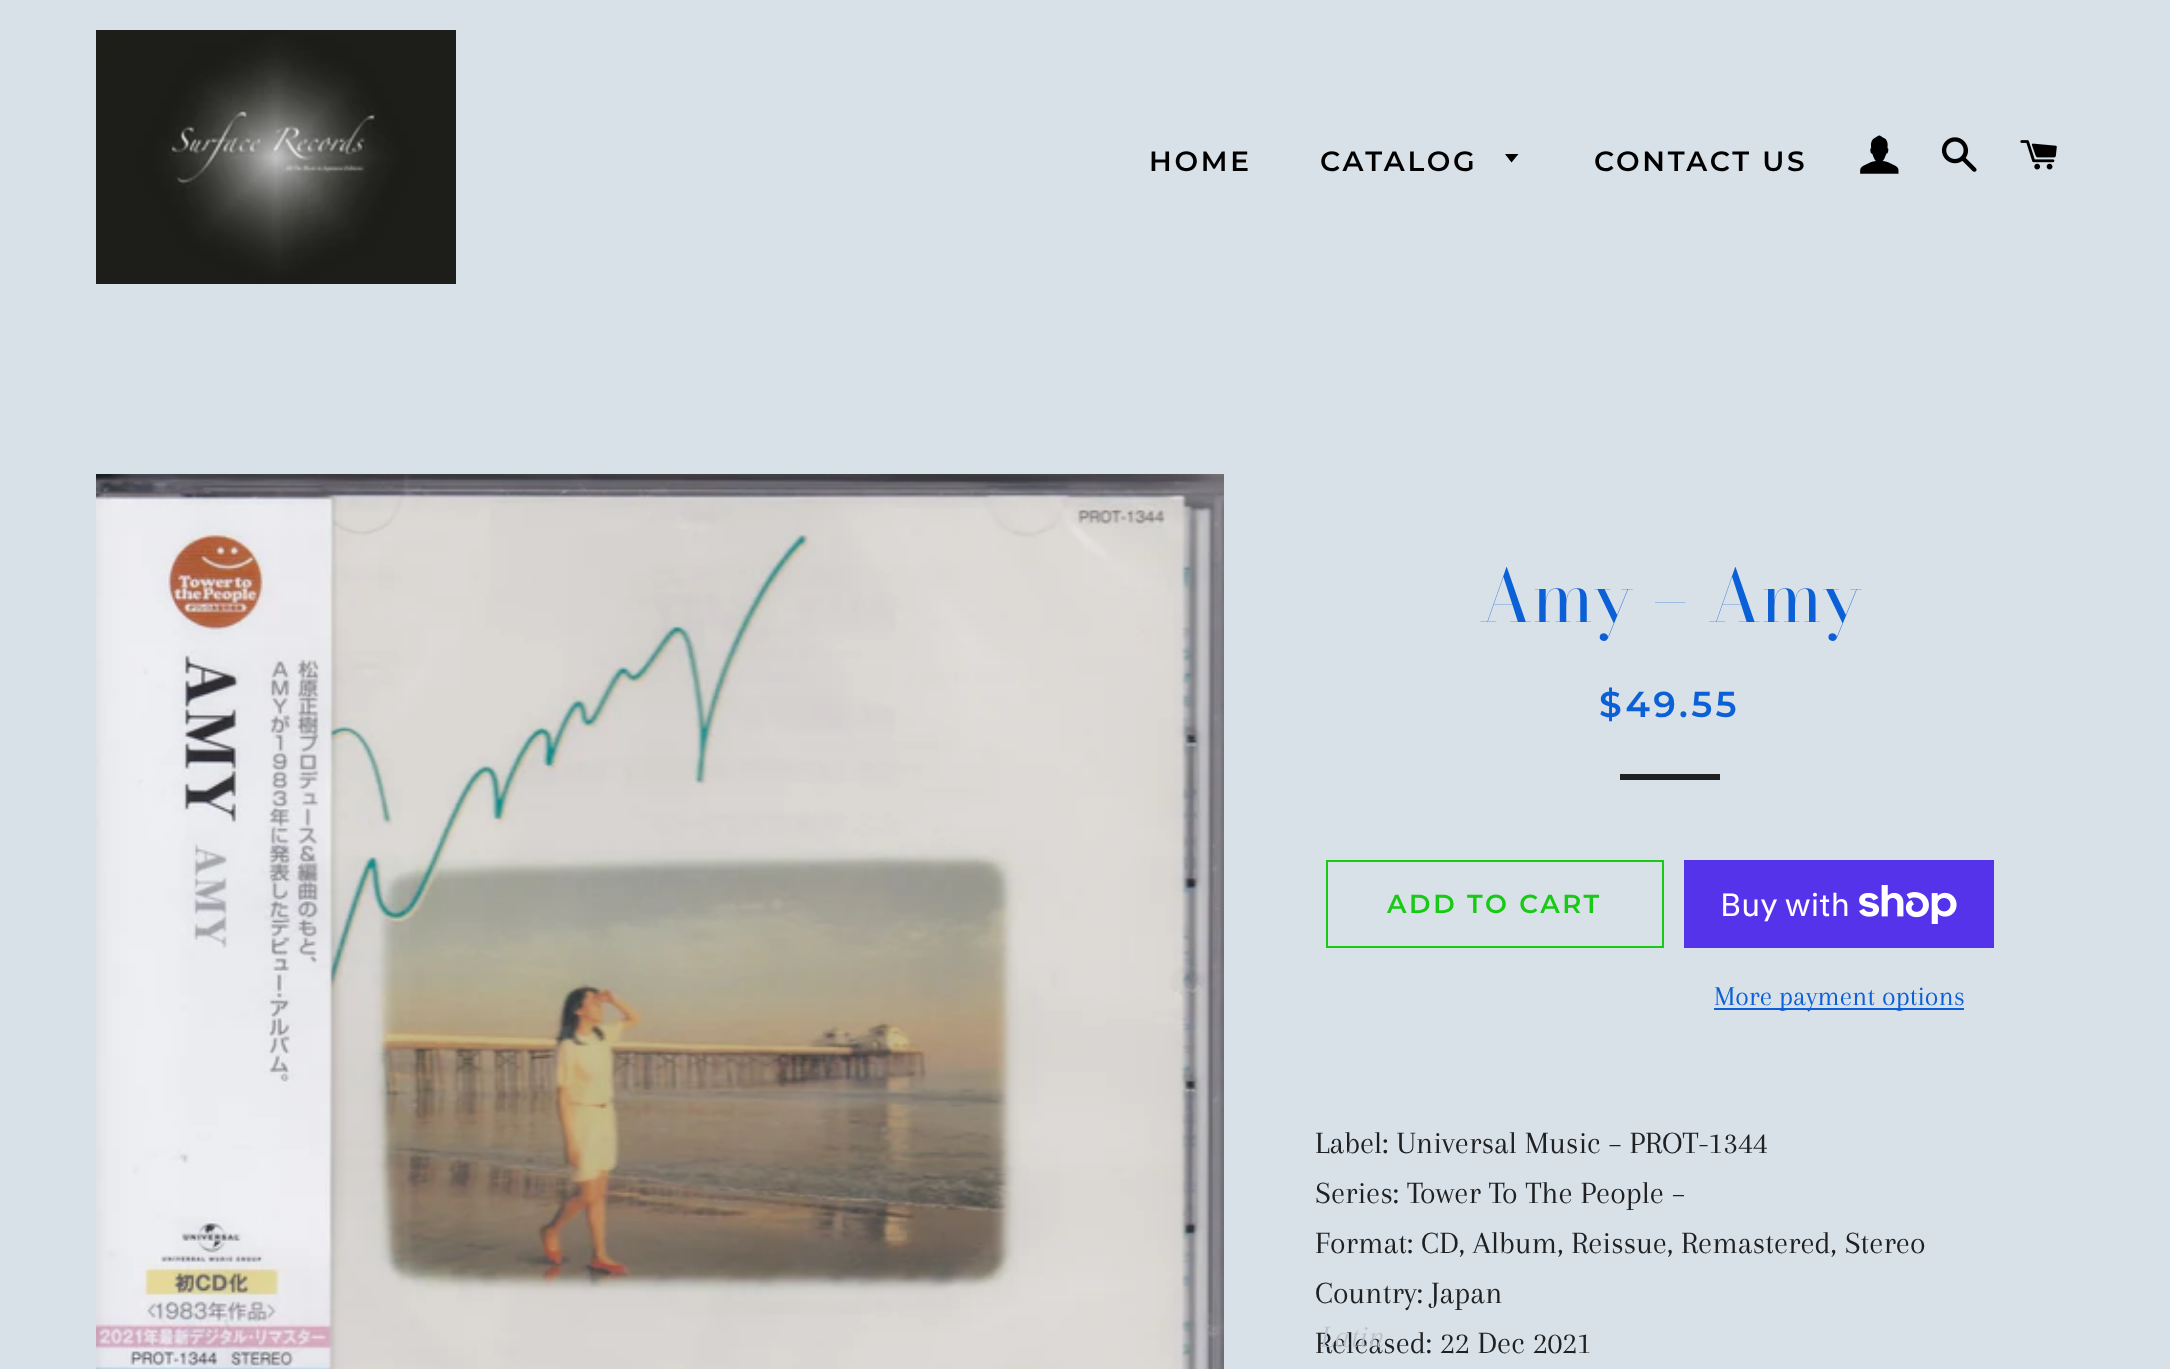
<svg xmlns="http://www.w3.org/2000/svg" xmlns:xlink="http://www.w3.org/1999/xlink" width="2170" height="1369" viewBox="0 0 2170 1369">
<style>
.cls-1{font:600 28px Montserrat;letter-spacing:2.75px;fill:#000000}
.cls-2{font:72px Bodoni Moda;fill:#0c60d7}
.cls-3{font:600 36px Montserrat;letter-spacing:3.5px;fill:#0c60d7}
.cls-4{font:600 26px Montserrat;letter-spacing:2.6px;fill:#18ca16}
.cls-5{font:32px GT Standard;fill:#ffffff}
.cls-6{font:28px Arapey;fill:#0c60d7}
.cls-7{font:32px Arapey;fill:#1f2021}
.cls-8{font:italic 32px Arapey;fill:#bbc2c9}
</style>
<rect width="100%" height="100%" fill="#d8e0e8"/>
<image xlink:href="image0.png" x="96" y="30" width="360" height="254"/>
<path fill="#000000" d="M1505 154L1511.5 162.5L1518.5 154Z"/>
<image xlink:href="image1.png" x="1860" y="135" width="39" height="39"/>
<image xlink:href="image2.png" x="1941" y="137" width="36" height="35"/>
<image xlink:href="image3.png" x="2020" y="140" width="37" height="30"/>
<image xlink:href="image4.png" x="96" y="474" width="1128" height="895"/>
<rect fill="#1f2021" x="1620" y="774" width="100" height="6"/>
<rect fill="none" stroke="#18ca16" stroke-width="2" x="1327" y="861" width="336" height="86"/>
<rect fill="#5433eb" x="1684" y="860" width="310" height="88"/>
<image xlink:href="image5.png" x="1859" y="885" width="98" height="39"/>
<rect fill="#0c60d7" x="1714" y="1008" width="250" height="2"/>
<text class="cls-1" x="1149" y="171">HOME</text>
<text class="cls-1" x="1320" y="171">CATALOG</text>
<text class="cls-1" x="1594" y="171">CONTACT US</text>
<text class="cls-2" x="1479" y="622">Amy – Amy</text>
<text class="cls-3" x="1599" y="717">$49.55</text>
<text class="cls-4" x="1387" y="913">ADD TO CART</text>
<text class="cls-5" x="1720" y="916">Buy with</text>
<text class="cls-6" x="1714" y="1005">More payment options</text>
<text class="cls-7"><tspan x="1315" y="1153">Label: Universal Music – PROT-1344</tspan><tspan x="1315" y="1203">Series: Tower To The People –</tspan><tspan x="1315" y="1253">Format: CD, Album, Reissue, Remastered, Stereo</tspan><tspan x="1315" y="1303">Country: Japan</tspan><tspan x="1315" y="1353">Released: 22 Dec 2021</tspan></text>
<text class="cls-8" x="1320" y="1347">Latin</text>
</svg>
